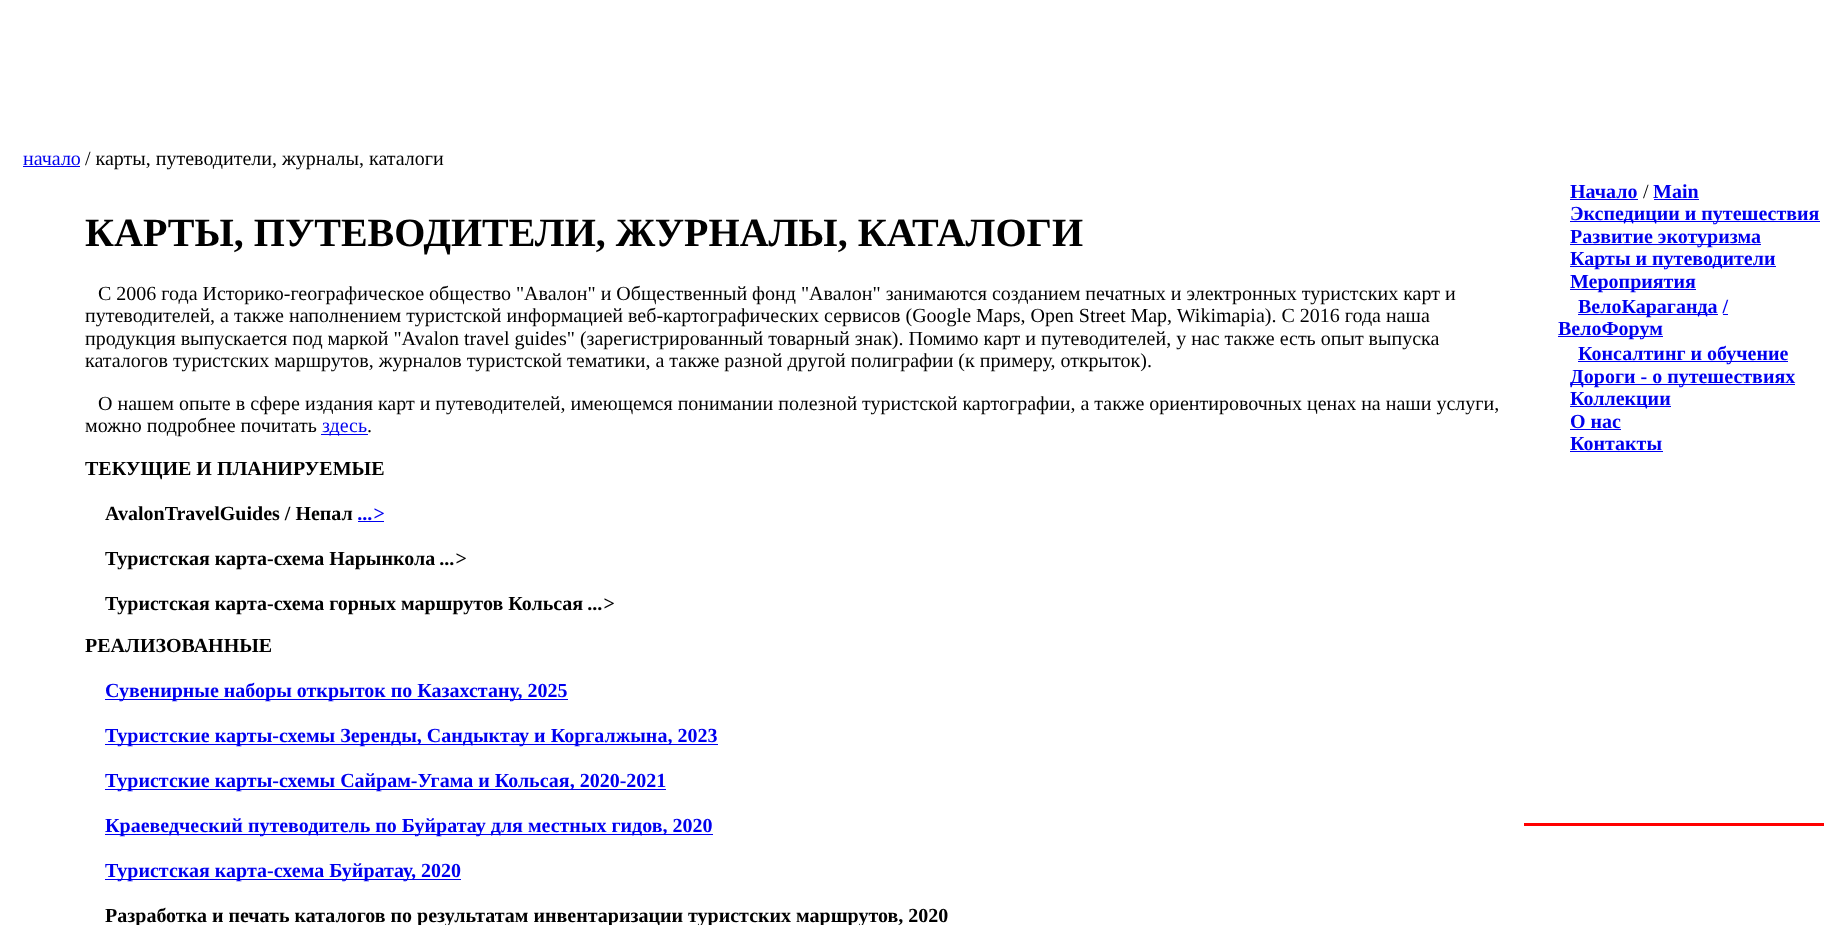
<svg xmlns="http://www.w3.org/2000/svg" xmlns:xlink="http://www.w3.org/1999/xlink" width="1833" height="925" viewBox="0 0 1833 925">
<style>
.cls-1{font:20px Liberation Serif;fill:#0000ee}
.cls-2{font:20px Liberation Serif;fill:#000000}
.cls-3{font:bold 40px Liberation Serif;fill:#000000}
.cls-4{font:bold 20px Liberation Serif;fill:#000000}
.cls-5{font:italic bold 20px Liberation Serif;fill:#0000ee}
.cls-6{font:italic bold 20px Liberation Serif;fill:#000000}
.cls-7{font:bold 20px Liberation Serif;fill:#0000ee}
</style>
<rect width="100%" height="100%" fill="#ffffff"/>
<rect fill="#0000ee" x="23" y="166" width="57" height="1"/>
<rect fill="#0000ee" x="321" y="434" width="47" height="1"/>
<rect fill="#0000ee" x="358" y="521" width="26" height="1"/>
<rect fill="#0000ee" x="105" y="699" width="463" height="1"/>
<rect fill="#0000ee" x="105" y="744" width="613" height="1"/>
<rect fill="#0000ee" x="105" y="789" width="561" height="1"/>
<rect fill="#0000ee" x="105" y="834" width="608" height="1"/>
<rect fill="#0000ee" x="105" y="879" width="356" height="1"/>
<rect fill="#0000ee" x="1570" y="199" width="68" height="1"/>
<rect fill="#0000ee" x="1654" y="199" width="45" height="1"/>
<rect fill="#0000ee" x="1570" y="221" width="250" height="1"/>
<rect fill="#0000ee" x="1570" y="244" width="191" height="1"/>
<rect fill="#0000ee" x="1570" y="266" width="206" height="1"/>
<rect fill="#0000ee" x="1570" y="289" width="126" height="1"/>
<rect fill="#0000ee" x="1578" y="314" width="140" height="1"/>
<rect fill="#0000ee" x="1723" y="314" width="5" height="1"/>
<rect fill="#0000ee" x="1558" y="336" width="105" height="1"/>
<rect fill="#0000ee" x="1578" y="361" width="210" height="1"/>
<rect fill="#0000ee" x="1570" y="384" width="225" height="1"/>
<rect fill="#0000ee" x="1570" y="406" width="101" height="1"/>
<rect fill="#0000ee" x="1570" y="429" width="51" height="1"/>
<rect fill="#0000ee" x="1570" y="451" width="93" height="1"/>
<rect fill="#ff0000" x="1524" y="823" width="300" height="3"/>
<text class="cls-1" x="23" y="165">начало</text>
<text class="cls-2" x="85" y="165">/ карты, путеводители, журналы, каталоги</text>
<text class="cls-3" x="85" y="246">КАРТЫ, ПУТЕВОДИТЕЛИ, ЖУРНАЛЫ, КАТАЛОГИ</text>
<text class="cls-2" x="98" y="300">С 2006 года Историко-географическое общество "Авалон" и Общественный фонд "Авалон" занимаются созданием печатных и электронных туристских карт и</text>
<text class="cls-2"><tspan x="85" y="322">путеводителей, а также наполнением туристской информацией веб-картографических сервисов (Google Maps, Open Street Map, Wikimapia). С 2016 года наша</tspan><tspan x="85" y="345">продукция выпускается под маркой "Avalon travel guides" (зарегистрированный товарный знак). Помимо карт и путеводителей, у нас также есть опыт выпуска</tspan><tspan x="85" y="367">каталогов туристских маршрутов, журналов туристской тематики, а также разной другой полиграфии (к примеру, открыток).</tspan></text>
<text class="cls-2" x="98" y="410">О нашем опыте в сфере издания карт и путеводителей, имеющемся понимании полезной туристской картографии, а также ориентировочных ценах на наши услуги,</text>
<text class="cls-2" x="85" y="432">можно подробнее почитать</text>
<text class="cls-1" x="322" y="432">здесь</text>
<text class="cls-2" x="367" y="432">.</text>
<text class="cls-4" x="85" y="475">ТЕКУЩИЕ И ПЛАНИРУЕМЫЕ</text>
<text class="cls-4" x="105" y="520">AvalonTravelGuides / Непал</text>
<text class="cls-5" x="358" y="520">...&gt;</text>
<text class="cls-4" x="105" y="565">Туристская карта-схема Нарынкола</text>
<text class="cls-6" x="440" y="565">...&gt;</text>
<text class="cls-4" x="105" y="610">Туристская карта-схема горных маршрутов Кольсая</text>
<text class="cls-6" x="588" y="610">...&gt;</text>
<text class="cls-4" x="85" y="652">РЕАЛИЗОВАННЫЕ</text>
<text class="cls-7" x="105" y="697">Сувенирные наборы открыток по Казахстану, 2025</text>
<text class="cls-7" x="105" y="742">Туристские карты-схемы Зеренды, Сандыктау и Коргалжына, 2023</text>
<text class="cls-7" x="105" y="787">Туристские карты-схемы Сайрам-Угама и Кольсая, 2020-2021</text>
<text class="cls-7" x="105" y="832">Краеведческий путеводитель по Буйратау для местных гидов, 2020</text>
<text class="cls-7" x="105" y="877">Туристская карта-схема Буйратау, 2020</text>
<text class="cls-4" x="105" y="922">Разработка и печать каталогов по результатам инвентаризации туристских маршрутов, 2020</text>
<text class="cls-7" x="1570" y="198">Начало</text>
<text class="cls-2" x="1643" y="198">/</text>
<text class="cls-7" x="1653" y="198">Main</text>
<text class="cls-7"><tspan x="1570" y="220">Экспедиции и путешествия</tspan><tspan x="1570" y="243">Развитие экотуризма</tspan><tspan x="1570" y="265">Карты и путеводители</tspan><tspan x="1570" y="288">Мероприятия</tspan></text>
<text class="cls-7" x="1578" y="313">ВелоКараганда /</text>
<text class="cls-7" x="1558" y="335">ВелоФорум</text>
<text class="cls-7" x="1578" y="360">Консалтинг и обучение</text>
<text class="cls-7"><tspan x="1570" y="383">Дороги - о путешествиях</tspan><tspan x="1570" y="405">Коллекции</tspan><tspan x="1570" y="428">О нас</tspan><tspan x="1570" y="450">Контакты</tspan></text>
</svg>
